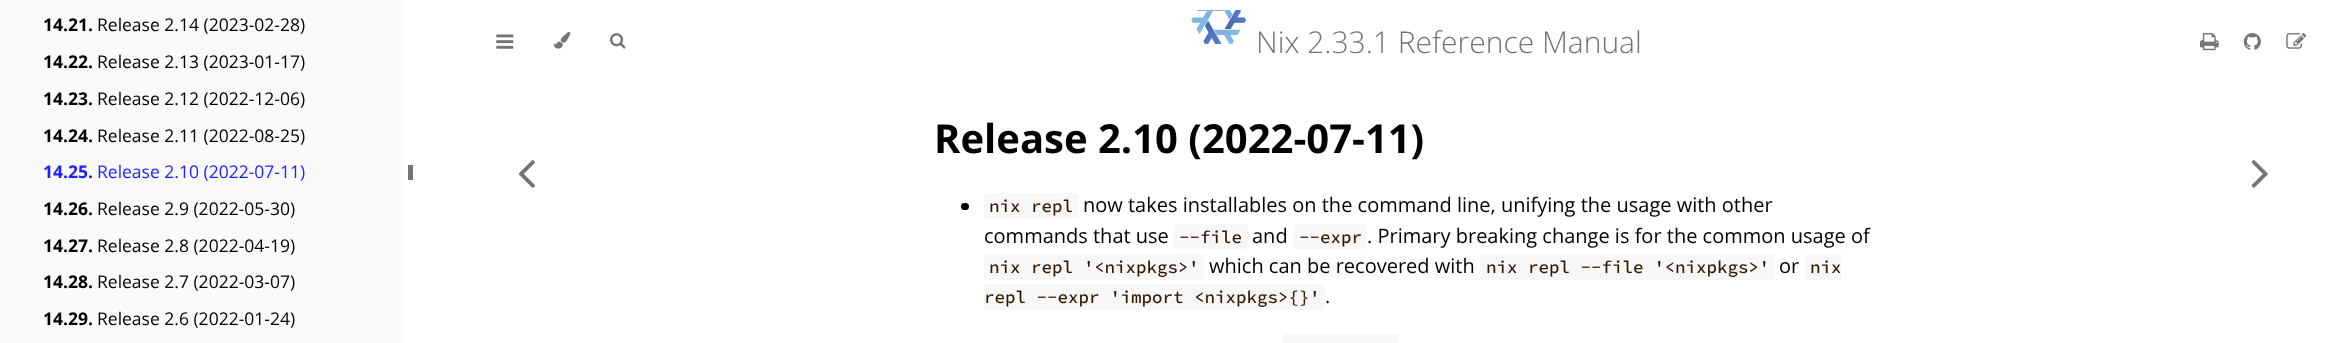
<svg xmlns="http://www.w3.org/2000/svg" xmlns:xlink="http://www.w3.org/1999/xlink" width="2335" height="343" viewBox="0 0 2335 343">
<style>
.cls-1{font:bold 17.5px Open Sans;fill:#000000}
.cls-2{font:17.5px Open Sans;fill:#000000}
.cls-3{font:bold 17.5px Open Sans;fill:#1f1fff}
.cls-4{font:17.5px Open Sans;fill:#1f1fff}
.cls-5{font:300 30px Open Sans;fill:#747474}
.cls-6{font:bold 40px Open Sans;fill:#000000}
.cls-7{font:500 17.5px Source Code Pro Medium;fill:#301900}
.cls-8{font:20px Open Sans;fill:#000000}
</style>
<rect width="100%" height="100%" fill="#ffffff"/>
<rect fill="#fafafa" x="0" y="0" width="403" height="343"/>
<rect fill="#747474" x="408" y="165" width="5" height="15"/>
<image xlink:href="image0.png" x="496" y="34" width="18" height="15"/>
<image xlink:href="image1.png" x="553" y="32" width="18" height="17"/>
<image xlink:href="image2.png" x="610" y="33" width="16" height="16"/>
<image xlink:href="image3.png" x="1191" y="10" width="55" height="34"/>
<image xlink:href="image4.png" x="2200" y="33" width="19" height="18"/>
<image xlink:href="image5.png" x="2243" y="33" width="18" height="17"/>
<image xlink:href="image6.png" x="2286" y="33" width="21" height="16"/>
<rect fill="#000000" x="961" y="203" width="8" height="7" rx="3.5"/>
<rect fill="#f6f7f6" x="984" y="193" width="95" height="26" rx="4"/>
<rect fill="#f6f7f6" x="1174" y="224" width="74" height="25" rx="4"/>
<rect fill="#f6f7f6" x="1294" y="224" width="72" height="25" rx="4"/>
<rect fill="#f6f7f6" x="984" y="254" width="220" height="26" rx="4"/>
<rect fill="#f6f7f6" x="1480" y="254" width="294" height="26" rx="4"/>
<path fill="#f6f7f6" d="M1809 254H1841V280H1809C1807 280 1805 278 1805 276V258C1805 256 1807 254 1809 254Z"/>
<path fill="#f6f7f6" d="M984 284H1321C1323 284 1325 286 1325 288V306C1325 308 1323 310 1321 310H984Z"/>
<rect fill="#f6f7f6" x="1283" y="334" width="115" height="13" rx="4"/>
<image xlink:href="image7.png" x="518" y="160" width="17" height="28"/>
<image xlink:href="image8.png" x="2251" y="160" width="17" height="28"/>
<text class="cls-1" x="43" y="31">14.21.</text>
<text class="cls-2" x="97" y="31">Release 2.14 (2023-02-28)</text>
<text class="cls-1" x="43" y="68">14.22.</text>
<text class="cls-2" x="97" y="68">Release 2.13 (2023-01-17)</text>
<text class="cls-1" x="43" y="105">14.23.</text>
<text class="cls-2" x="97" y="105">Release 2.12 (2022-12-06)</text>
<text class="cls-1" x="43" y="142">14.24.</text>
<text class="cls-2" x="97" y="142">Release 2.11 (2022-08-25)</text>
<text class="cls-3" x="43" y="178">14.25.</text>
<text class="cls-4" x="97" y="178">Release 2.10 (2022-07-11)</text>
<text class="cls-1" x="43" y="215">14.26.</text>
<text class="cls-2" x="97" y="215">Release 2.9 (2022-05-30)</text>
<text class="cls-1" x="43" y="252">14.27.</text>
<text class="cls-2" x="97" y="252">Release 2.8 (2022-04-19)</text>
<text class="cls-1" x="43" y="288">14.28.</text>
<text class="cls-2" x="97" y="288">Release 2.7 (2022-03-07)</text>
<text class="cls-1" x="43" y="325">14.29.</text>
<text class="cls-2" x="97" y="325">Release 2.6 (2022-01-24)</text>
<text class="cls-5" x="1256" y="53">Nix 2.33.1 Reference Manual</text>
<text class="cls-6" x="934" y="153">Release 2.10 (2022-07-11)</text>
<text class="cls-7" x="989" y="212">nix repl</text>
<text class="cls-8" x="1083" y="212">now takes installables on the command line, unifying the usage with other</text>
<text class="cls-8" x="984" y="243">commands that use</text>
<text class="cls-7" x="1179" y="243">--file</text>
<text class="cls-8" x="1252" y="243">and</text>
<text class="cls-7" x="1299" y="243">--expr</text>
<text class="cls-8" x="1367" y="243">. Primary breaking change is for the common usage of</text>
<text class="cls-7" x="989" y="273">nix repl '&lt;nixpkgs&gt;'</text>
<text class="cls-8" x="1209" y="273">which can be recovered with</text>
<text class="cls-7" x="1486" y="273">nix repl --file '&lt;nixpkgs&gt;'</text>
<text class="cls-8" x="1779" y="273">or</text>
<text class="cls-7" x="1810" y="273">nix</text>
<text class="cls-7" x="984" y="303">repl --expr 'import &lt;nixpkgs&gt;{}'</text>
<text class="cls-8" x="1325" y="303">.</text>
</svg>
